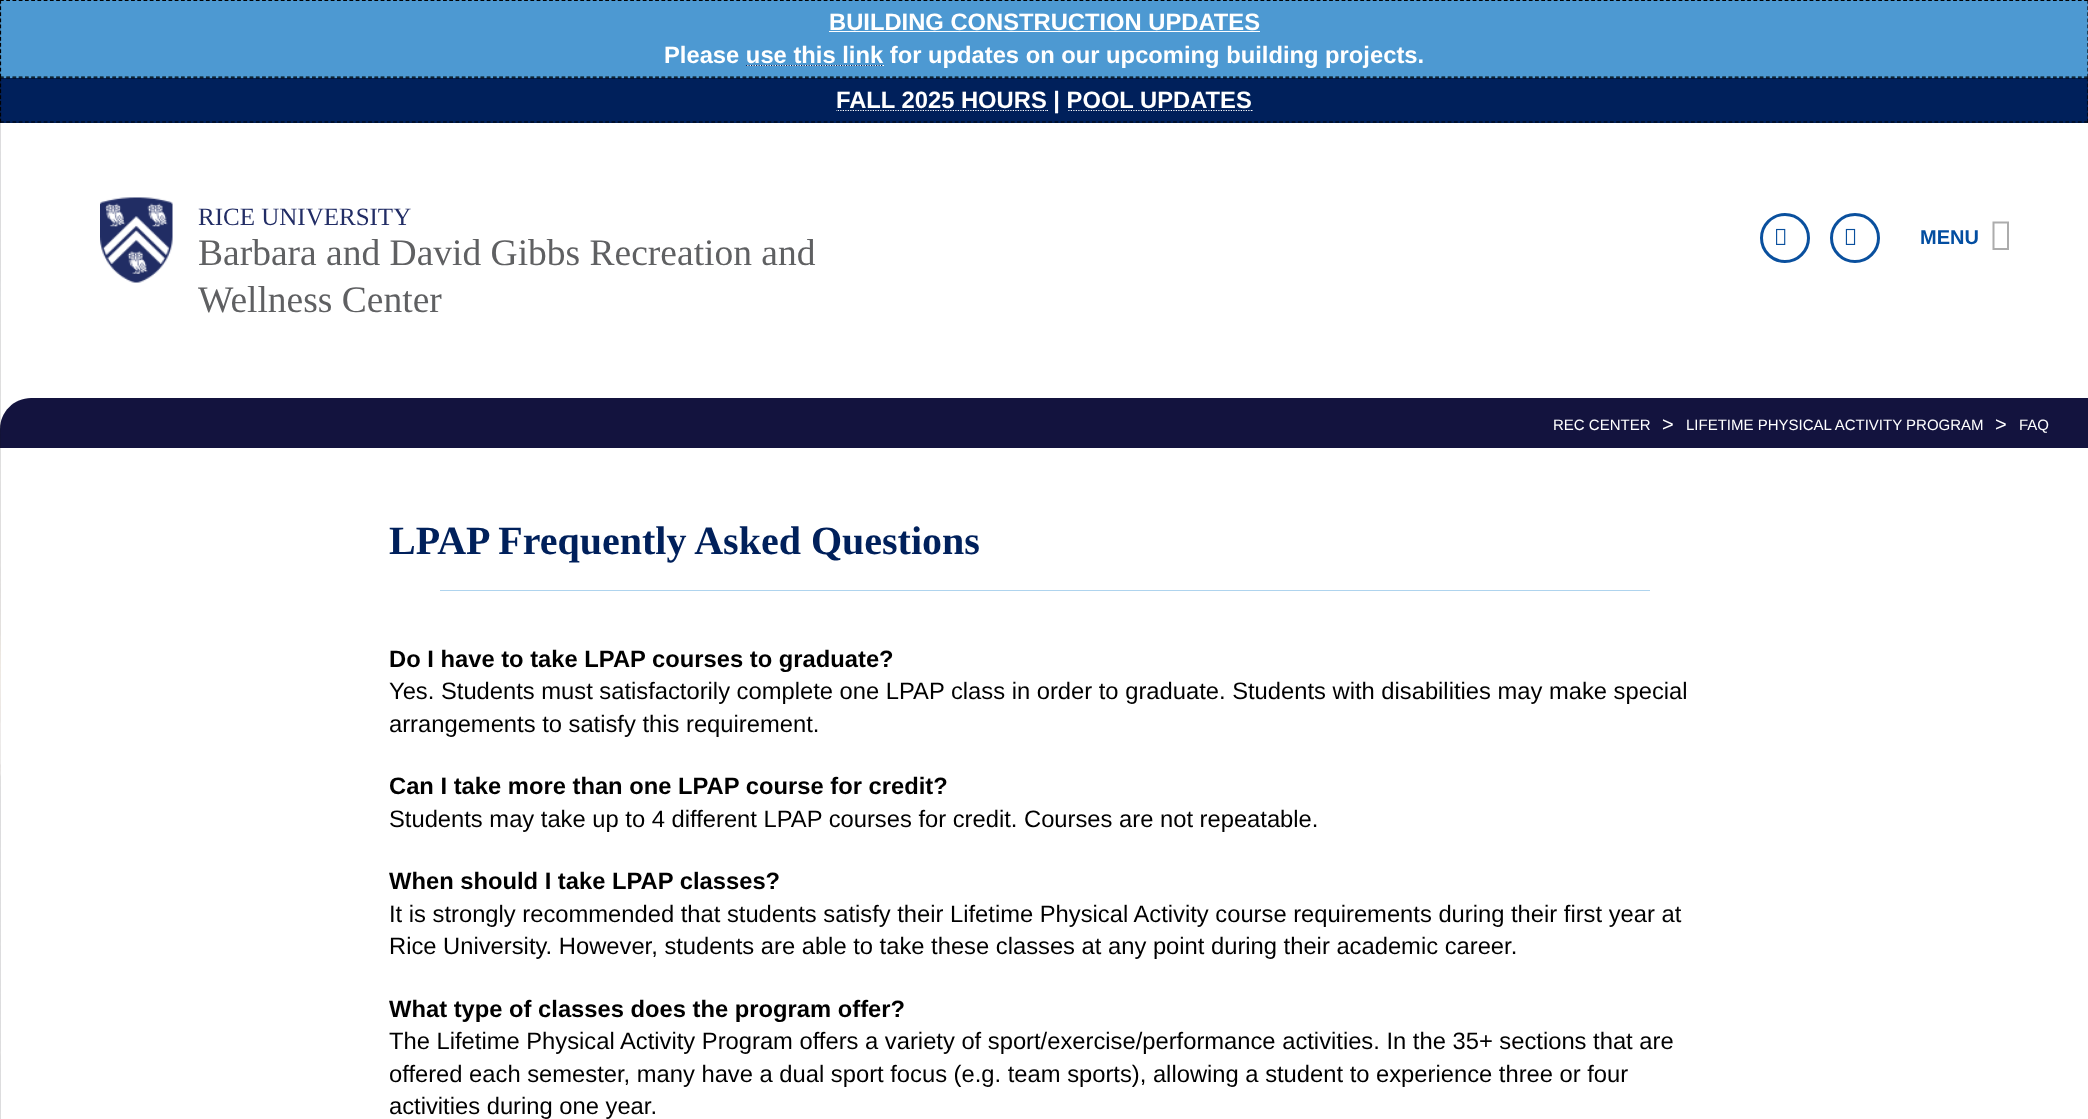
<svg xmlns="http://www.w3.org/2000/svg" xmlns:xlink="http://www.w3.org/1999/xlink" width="2088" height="1119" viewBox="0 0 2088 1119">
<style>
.cls-1{font:bold 23.75px Liberation Sans;fill:#ffffff}
.cls-2{font:25px Liberation Serif;fill:#222d65}
.cls-3{font:37.5px Liberation Serif;fill:#5f6062}
.cls-4{font:bold 20px Liberation Sans;fill:#034ea1}
.cls-5{font:15px Liberation Sans;fill:#ffffff}
.cls-6{font:20px Liberation Sans;fill:#ffffff}
.cls-7{font:bold 40px Liberation Serif;fill:#00205b}
.cls-8{font:bold 23.75px Liberation Sans;fill:#000000}
.cls-9{font:23.75px Liberation Sans;fill:#000000}
</style>
<rect width="100%" height="100%" fill="#ffffff"/>
<rect fill="#4d99d2" x="0" y="0" width="2088" height="78"/>
<path fill="none" stroke="#000000" stroke-width="1.2" stroke-dasharray="3.75 2.49" d="M0 .5H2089"/>
<path fill="none" stroke="#000000" stroke-width="1.2" stroke-dasharray="3.75 2.4" d="M2088 0V77.5"/>
<path fill="none" stroke="#000000" stroke-width="1.2" stroke-dasharray="3.75 2.49" d="M0 77H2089"/>
<path fill="none" stroke="#000000" stroke-width="1.2" stroke-dasharray="3.75 2.4" d="M.5 0V77.5"/>
<rect fill="#ffffff" x="829" y="31" width="431" height="1"/>
<rect fill="#ffffff" x="746" y="65" width="138" height="1"/>
<rect fill="#00205b" x="0" y="78" width="2088" height="45"/>
<path fill="none" stroke="#000000" stroke-width="1.2" stroke-dasharray="3.75 2.49" d="M0 78H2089"/>
<path fill="none" stroke="#000000" stroke-width="1.2" stroke-dasharray="3.75 2.14" d="M2088 77.5V122.5"/>
<path fill="none" stroke="#000000" stroke-width="1.2" stroke-dasharray="3.75 2.49" d="M0 122H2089"/>
<path fill="none" stroke="#000000" stroke-width="1.2" stroke-dasharray="3.75 2.14" d="M.5 77.5V122.5"/>
<rect fill="#ffffff" x="836" y="110" width="212" height="1"/>
<path fill="none" stroke="#00205b" stroke-width="1.2" stroke-dasharray="1.25 1.25" d="M836.5 110.5H1047"/>
<rect fill="#ffffff" x="1068" y="110" width="185" height="1"/>
<path fill="#13133e" d="M31 398H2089V448H0V429C0 412 14 398 31 398Z"/>
<image xlink:href="image0.png" x="0" y="3" width="1" height="1116"/>
<image xlink:href="image1.png" x="100" y="197" width="73" height="86"/>
<circle fill="none" stroke="#0a509e" stroke-width="3" cx="1785" cy="238" r="23.5"/>
<image xlink:href="image2.png" x="1776" y="228" width="10" height="17"/>
<circle fill="none" stroke="#0a509e" stroke-width="3" cx="1855" cy="238" r="23.5"/>
<image xlink:href="image3.png" x="1845" y="228" width="11" height="17"/>
<path fill="#acacac" d="M1992.5 250V221.5H2009V250ZM1994.5 248H2007V223.5H1994.5Z"/>
<rect fill="#afd4ee" x="440" y="590" width="1210" height="1"/>
<text class="cls-1" x="829" y="30">BUILDING CONSTRUCTION UPDATES</text>
<text class="cls-1" x="664" y="63">Please use this link for updates on our upcoming building projects.</text>
<path fill="none" stroke="#00205b" stroke-width="1.2" stroke-dasharray="1.25 1.25" d="M746 65.5H883.5"/>
<text class="cls-1" x="836" y="108">FALL 2025 HOURS | POOL UPDATES</text>
<path fill="none" stroke="#00205b" stroke-width="1.2" stroke-dasharray="1.25 1.25" d="M1067 110.5H1252.5"/>
<text class="cls-2" x="198" y="225">RICE UNIVERSITY</text>
<text class="cls-3"><tspan x="198" y="265">Barbara and David Gibbs Recreation and</tspan><tspan x="198" y="312">Wellness Center</tspan></text>
<text class="cls-4" x="1920" y="244">MENU</text>
<text class="cls-5" x="1553" y="430">REC CENTER</text>
<text class="cls-6" x="1662" y="431">&gt;</text>
<text class="cls-5" x="1686" y="430">LIFETIME PHYSICAL ACTIVITY PROGRAM</text>
<text class="cls-6" x="1995" y="431">&gt;</text>
<text class="cls-5" x="2019" y="430">FAQ</text>
<text class="cls-7" x="389" y="554">LPAP Frequently Asked Questions</text>
<text class="cls-8" x="389" y="667">Do I have to take LPAP courses to graduate?</text>
<text class="cls-9"><tspan x="389" y="699">Yes. Students must satisfactorily complete one LPAP class in order to graduate. Students with disabilities may make special</tspan><tspan x="389" y="732">arrangements to satisfy this requirement.</tspan></text>
<text class="cls-8" x="389" y="794">Can I take more than one LPAP course for credit?</text>
<text class="cls-9" x="389" y="827">Students may take up to 4 different LPAP courses for credit. Courses are not repeatable.</text>
<text class="cls-8" x="389" y="889">When should I take LPAP classes?</text>
<text class="cls-9"><tspan x="389" y="922">It is strongly recommended that students satisfy their Lifetime Physical Activity course requirements during their first year at</tspan><tspan x="389" y="954">Rice University. However, students are able to take these classes at any point during their academic career.</tspan></text>
<text class="cls-8" x="389" y="1017">What type of classes does the program offer?</text>
<text class="cls-9"><tspan x="389" y="1049">The Lifetime Physical Activity Program offers a variety of sport/exercise/performance activities. In the 35+ sections that are</tspan><tspan x="389" y="1082">offered each semester, many have a dual sport focus (e.g. team sports), allowing a student to experience three or four</tspan><tspan x="389" y="1114">activities during one year.</tspan></text>
</svg>
